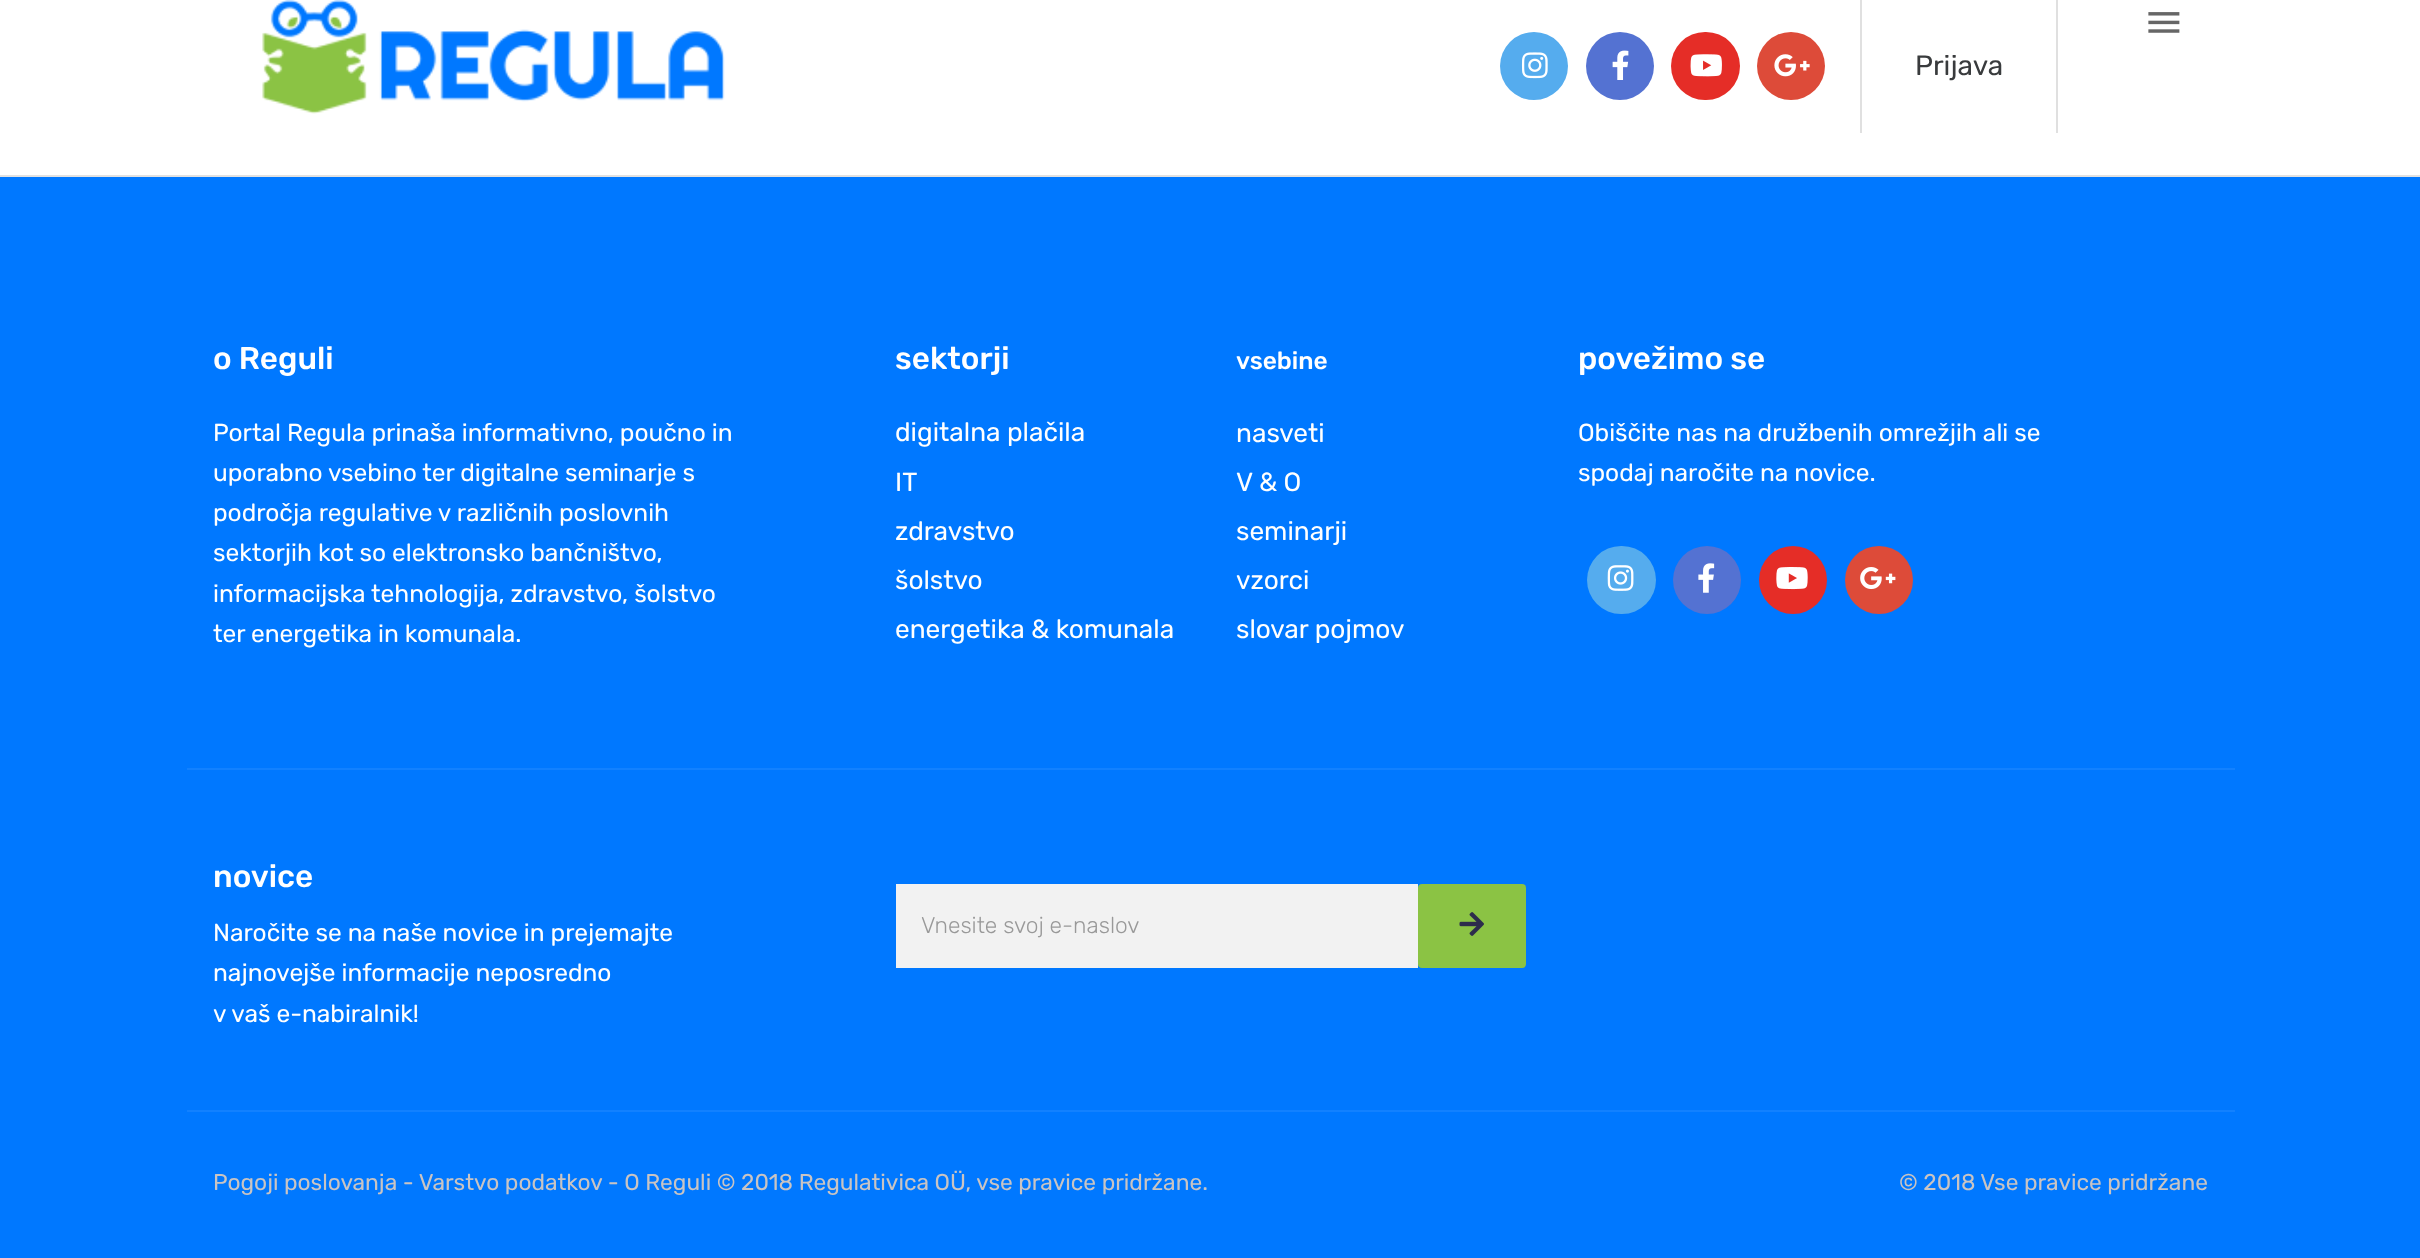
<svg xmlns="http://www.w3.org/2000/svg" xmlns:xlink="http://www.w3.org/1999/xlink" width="2420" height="1258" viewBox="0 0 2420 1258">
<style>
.cls-1{font:28px Rubik;fill:#393b3d}
.cls-2{font:500 31.5px Rubik;fill:#ffffff}
.cls-3{font:24.5px Rubik;fill:#ffffff}
.cls-4{font:26.25px Rubik;fill:#ffffff}
.cls-5{font:500 24.5px Rubik;fill:#ffffff}
.cls-6{font:300 22.75px Rubik;fill:#999999}
.cls-7{font:22.75px Rubik;fill:#c9c4c3}
</style>
<rect width="100%" height="100%" fill="#0078ff"/>
<rect fill="#ffffff" x="0" y="0" width="2420" height="175"/>
<rect fill="#e1e1e1" x="0" y="175" width="2420" height="2"/>
<image xlink:href="image0.png" x="262" y="0" width="463" height="114"/>
<image xlink:href="image1.png" x="2148" y="12" width="32" height="21"/>
<circle fill="#55acee" cx="1534" cy="66" r="34"/>
<image xlink:href="image2.png" x="1521" y="52" width="27" height="27"/>
<circle fill="#5472d2" cx="1620" cy="66" r="34"/>
<image xlink:href="image3.png" x="1612" y="50" width="17" height="30"/>
<rect fill="#e52d27" x="1671" y="32" width="69" height="68" rx="34"/>
<image xlink:href="image4.png" x="1690" y="54" width="32" height="23"/>
<circle fill="#dd4b39" cx="1791" cy="66" r="34"/>
<image xlink:href="image5.png" x="1774" y="54" width="36" height="23"/>
<rect fill="#e0e0e0" x="2056" y="0" width="2" height="133"/>
<rect fill="#e0e0e0" x="1860" y="0" width="2" height="133"/>
<rect fill="#55acee" x="1587" y="546" width="69" height="68" rx="34"/>
<image xlink:href="image6.png" x="1607" y="565" width="27" height="26"/>
<circle fill="#5472d2" cx="1707" cy="580" r="34"/>
<image xlink:href="image7.png" x="1698" y="563" width="17" height="30"/>
<circle fill="#e52d27" cx="1793" cy="580" r="34"/>
<image xlink:href="image8.png" x="1776" y="567" width="32" height="23"/>
<circle fill="#dd4b39" cx="1879" cy="580" r="34"/>
<image xlink:href="image9.png" x="1860" y="567" width="36" height="23"/>
<rect fill="#1281ff" x="187" y="768" width="2048" height="2"/>
<rect fill="#1281ff" x="187" y="1110" width="2048" height="2"/>
<rect fill="#f2f2f2" x="896" y="884" width="522" height="84"/>
<rect fill="#8bc344" x="1418" y="884" width="108" height="84" rx="4"/>
<image xlink:href="image10.png" x="1459" y="912" width="25" height="24"/>
<text class="cls-1" x="1915" y="75">Prijava</text>
<text class="cls-2" x="213" y="369">o Reguli</text>
<text class="cls-3"><tspan x="213" y="441">Portal Regula prinaša informativno, poučno in</tspan><tspan x="213" y="481">uporabno vsebino ter digitalne seminarje s</tspan><tspan x="213" y="521">področja regulative v različnih poslovnih</tspan><tspan x="213" y="561">sektorjih kot so elektronsko bančništvo,</tspan><tspan x="213" y="602">informacijska tehnologija, zdravstvo, šolstvo</tspan><tspan x="213" y="642">ter energetika in komunala.</tspan></text>
<text class="cls-2" x="895" y="369">sektorji</text>
<text class="cls-4"><tspan x="895" y="441">digitalna plačila</tspan><tspan x="895" y="491">IT</tspan><tspan x="895" y="540">zdravstvo</tspan><tspan x="895" y="589">šolstvo</tspan><tspan x="895" y="638">energetika &amp; komunala</tspan></text>
<text class="cls-5" x="1236" y="369">vsebine</text>
<text class="cls-4"><tspan x="1236" y="442">nasveti</tspan><tspan x="1236" y="491">V &amp; O</tspan><tspan x="1236" y="540">seminarji</tspan><tspan x="1236" y="589">vzorci</tspan><tspan x="1236" y="638">slovar pojmov</tspan></text>
<text class="cls-2" x="1578" y="369">povežimo se</text>
<text class="cls-3"><tspan x="1578" y="441">Obiščite nas na družbenih omrežjih ali se</tspan><tspan x="1578" y="481">spodaj naročite na novice.</tspan></text>
<text class="cls-2" x="213" y="887">novice</text>
<text class="cls-3"><tspan x="213" y="941">Naročite se na naše novice in prejemajte</tspan><tspan x="213" y="981">najnovejše informacije neposredno</tspan><tspan x="213" y="1022">v vaš e-nabiralnik!</tspan></text>
<text class="cls-6" x="921" y="933">Vnesite svoj e-naslov</text>
<text class="cls-7" x="213" y="1190">Pogoji poslovanja - Varstvo podatkov - O Reguli © 2018 Regulativica OÜ, vse pravice pridržane.</text>
<text class="cls-7" x="1899" y="1190">© 2018 Vse pravice pridržane</text>
</svg>
